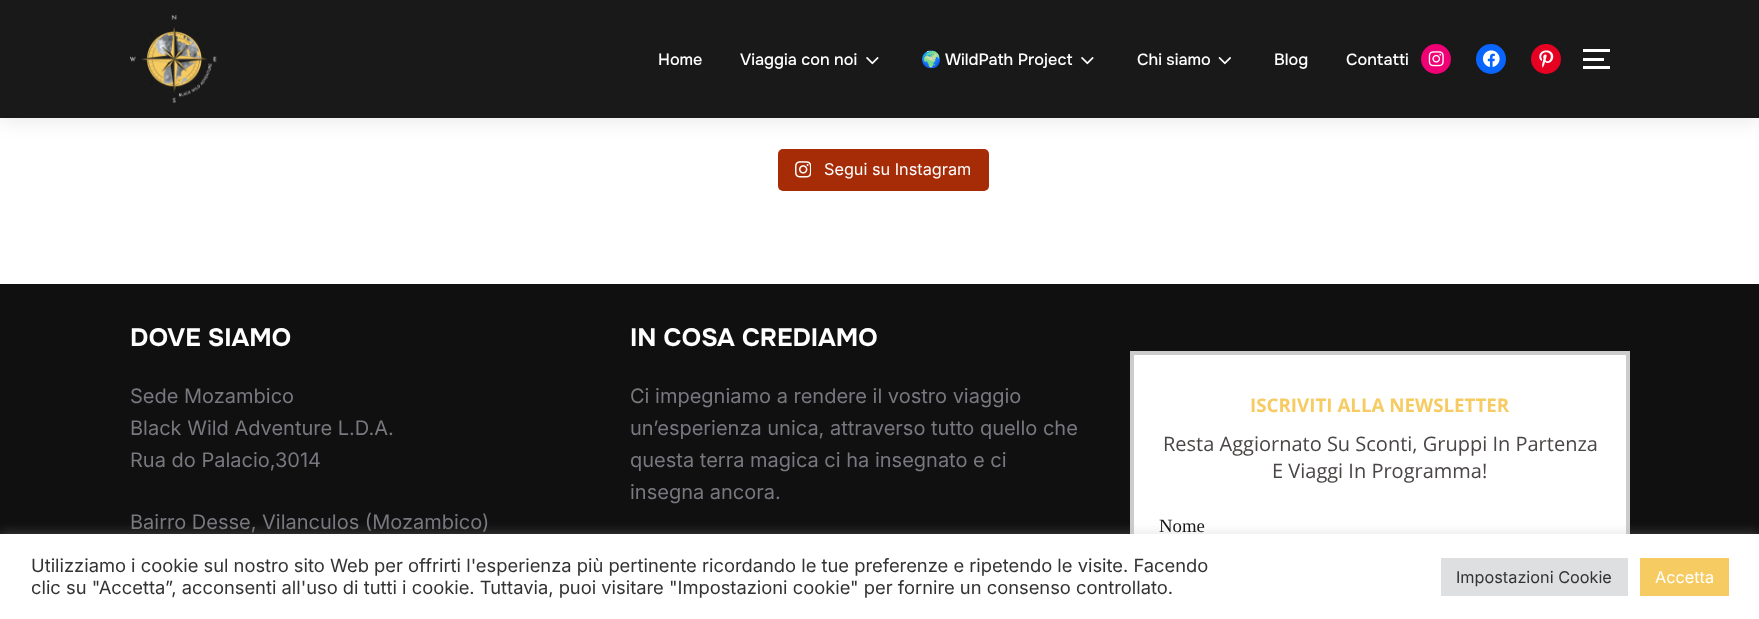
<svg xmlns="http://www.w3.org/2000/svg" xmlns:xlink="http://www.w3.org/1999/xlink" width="1759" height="619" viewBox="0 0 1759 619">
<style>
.cls-1{font:500 16.25px Onest;fill:#ffffff}
.cls-2{font:16.25px Noto Color Emoji;fill:#ffffff}
.cls-3{font:16.25px Inter;fill:#ffffff}
.cls-4{font:bold 25px Onest;fill:#ffffff}
.cls-5{font:20px Inter;fill:#78787f}
.cls-6{font:bold 18.75px Open Sans;fill:#f6cb62}
.cls-7{font:20px Open Sans;fill:#4b4646}
.cls-8{font:18.75px Liberation Serif;fill:#181818}
.cls-9{font:18.33px Inter;fill:#333333}
.cls-10{font:16.25px Inter;fill:#333333}
</style>
<defs>
<clipPath id="clip1"><path d="M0 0H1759V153H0ZM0 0H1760V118H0Z" clip-rule="evenodd"/></clipPath>
</defs>
<rect width="100%" height="100%" fill="#ffffff"/>
<rect fill="#a62b07" x="778" y="149" width="211" height="42" rx="5"/>
<g clip-path="url(#clip1)">
<rect fill="#000000" fill-opacity="0.1" filter="blur(11px)" x="-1" y="-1" width="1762" height="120"/>
</g>
<rect fill="#000000" fill-opacity="0.9" x="0" y="0" width="1759" height="118"/>
<image xlink:href="image0.png" x="130" y="15" width="87" height="88"/>
<image xlink:href="image1.png" x="866" y="57" width="13" height="8"/>
<image xlink:href="image1.png" x="1081" y="57" width="13" height="8"/>
<image xlink:href="image2.png" x="1218" y="57" width="13" height="8"/>
<circle fill="#f00075" cx="1436" cy="59" r="15"/>
<image xlink:href="image3.png" x="1428" y="51" width="16" height="16"/>
<circle fill="#0866ff" cx="1491" cy="59" r="15"/>
<image xlink:href="image4.png" x="1482" y="50" width="18" height="17"/>
<circle fill="#e60122" cx="1546" cy="59" r="15"/>
<image xlink:href="image5.png" x="1539" y="50" width="15" height="18"/>
<rect fill="#ffffff" x="1583" y="49" width="27" height="3"/>
<rect fill="#ffffff" x="1583" y="58" width="21" height="3"/>
<rect fill="#ffffff" x="1583" y="66" width="27" height="3"/>
<image xlink:href="image6.png" x="795" y="161" width="16" height="17"/>
<rect fill="#101010" x="0" y="284" width="1759" height="250"/>
<rect fill="#ffffff" x="1134" y="355" width="492" height="179"/>
<rect fill="none" stroke="#cccccc" stroke-width="4" x="1132" y="353" width="496" height="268"/>
<rect fill="#acabab" fill-opacity="0.3" filter="blur(6px)" x="0" y="533" width="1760" height="86"/>
<rect fill="#ffffff" x="0" y="534" width="1759" height="85"/>
<rect fill="#dedfe0" x="1441" y="558" width="187" height="38"/>
<rect fill="#f6cb62" x="1640" y="558" width="89" height="38"/>
<text class="cls-1" x="658" y="65">Home</text>
<text class="cls-1" x="740" y="65">Viaggia con noi</text>
<text class="cls-2" x="921" y="65">🌍</text>
<text class="cls-1" x="945" y="65">WildPath Project</text>
<text class="cls-1" x="1137" y="65">Chi siamo</text>
<text class="cls-1" x="1274" y="65">Blog</text>
<text class="cls-1" x="1346" y="65">Contatti</text>
<text class="cls-3" x="824" y="175">Segui su Instagram</text>
<text class="cls-4" x="130" y="346">DOVE SIAMO</text>
<text class="cls-5"><tspan x="130" y="403">Sede Mozambico</tspan><tspan x="130" y="435">Black Wild Adventure L.D.A.</tspan><tspan x="130" y="467">Rua do Palacio,3014</tspan></text>
<text class="cls-5" x="130" y="529">Bairro Desse, Vilanculos (Mozambico)</text>
<text class="cls-4" x="630" y="346">IN COSA CREDIAMO</text>
<text class="cls-5"><tspan x="630" y="403">Ci impegniamo a rendere il vostro viaggio</tspan><tspan x="630" y="435">un’esperienza unica, attraverso tutto quello che</tspan><tspan x="630" y="467">questa terra magica ci ha insegnato e ci</tspan><tspan x="630" y="499">insegna ancora.</tspan></text>
<text class="cls-6" x="1250" y="412">ISCRIVITI ALLA NEWSLETTER</text>
<text class="cls-7" x="1163" y="451">Resta Aggiornato Su Sconti, Gruppi In Partenza</text>
<text class="cls-7" x="1272" y="478">E Viaggi In Programma!</text>
<text class="cls-8" x="1159" y="532">Nome</text>
<text class="cls-9"><tspan x="31" y="572">Utilizziamo i cookie sul nostro sito Web per offrirti l'esperienza più pertinente ricordando le tue preferenze e ripetendo le visite. Facendo</tspan><tspan x="31" y="594">clic su "Accetta”, acconsenti all'uso di tutti i cookie. Tuttavia, puoi visitare "Impostazioni cookie" per fornire un consenso controllato.</tspan></text>
<text class="cls-10" x="1456" y="583">Impostazioni Cookie</text>
<text class="cls-3" x="1655" y="583">Accetta</text>
</svg>
